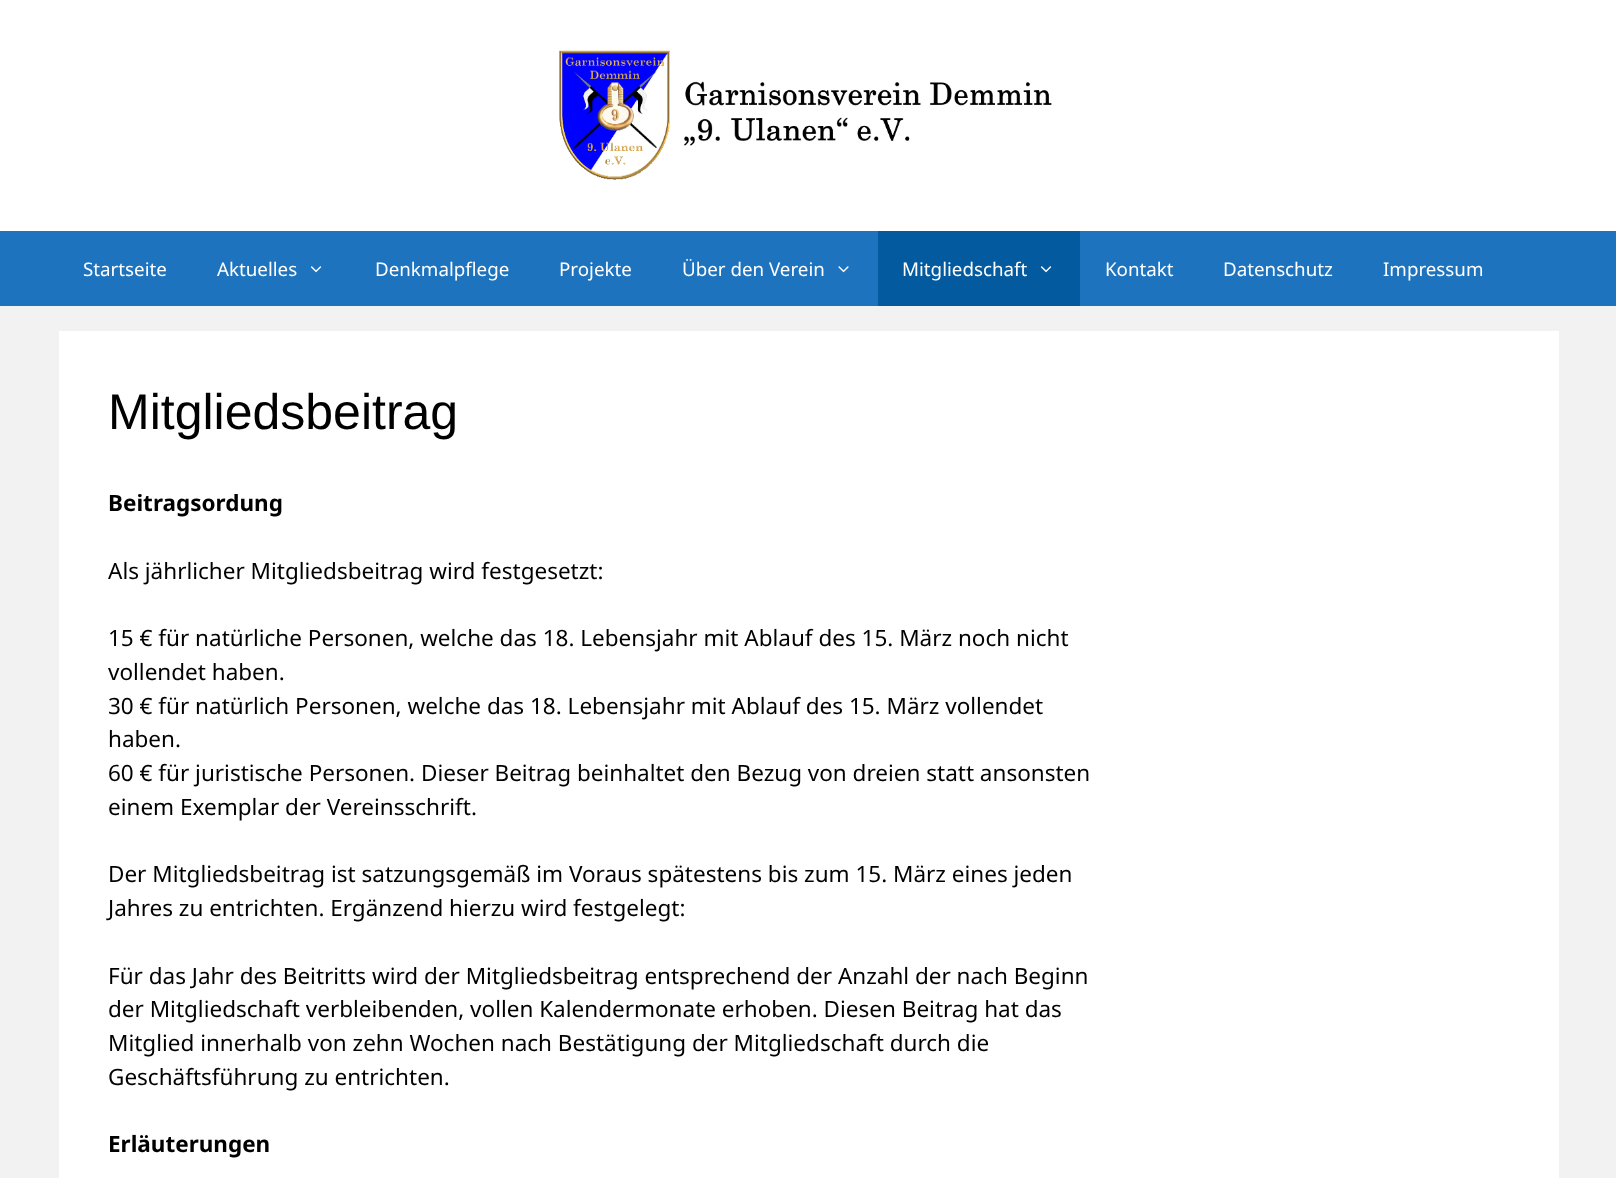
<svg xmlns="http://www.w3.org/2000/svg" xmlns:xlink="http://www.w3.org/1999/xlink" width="1616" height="1178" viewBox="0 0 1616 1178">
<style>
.cls-1{font:18.75px Noto Sans;fill:#ffffff}
.cls-2{font:50px Liberation Sans;fill:#000000}
.cls-3{font:bold 22.5px Noto Sans;fill:#000000}
.cls-4{font:22.5px Noto Sans;fill:#000000}
</style>
<rect width="100%" height="100%" fill="#f2f2f2"/>
<rect fill="#ffffff" x="0" y="0" width="1616" height="231"/>
<image xlink:href="image0.png" x="559" y="50" width="493" height="130"/>
<rect fill="#1e73be" x="0" y="231" width="1616" height="75"/>
<image xlink:href="image1.png" x="310" y="266" width="12" height="7"/>
<image xlink:href="image2.png" x="838" y="266" width="11" height="7"/>
<rect fill="#035a9e" x="878" y="231" width="202" height="75"/>
<image xlink:href="image3.png" x="1040" y="266" width="12" height="7"/>
<rect fill="#ffffff" x="59" y="331" width="1500" height="847"/>
<text class="cls-1" x="83" y="276">Startseite</text>
<text class="cls-1" x="217" y="276">Aktuelles</text>
<text class="cls-1" x="375" y="276">Denkmalpflege</text>
<text class="cls-1" x="559" y="276">Projekte</text>
<text class="cls-1" x="682" y="276">Über den Verein</text>
<text class="cls-1" x="902" y="276">Mitgliedschaft</text>
<text class="cls-1" x="1105" y="276">Kontakt</text>
<text class="cls-1" x="1223" y="276">Datenschutz</text>
<text class="cls-1" x="1383" y="276">Impressum</text>
<text class="cls-2" x="108" y="429">Mitgliedsbeitrag</text>
<text class="cls-3" x="108" y="511">Beitragsordung</text>
<text class="cls-4" x="108" y="579">Als jährlicher Mitgliedsbeitrag wird festgesetzt:</text>
<text class="cls-4"><tspan x="108" y="646">15 € für natürliche Personen, welche das 18. Lebensjahr mit Ablauf des 15. März noch nicht</tspan><tspan x="108" y="680">vollendet haben.</tspan><tspan x="108" y="714">30 € für natürlich Personen, welche das 18. Lebensjahr mit Ablauf des 15. März vollendet</tspan><tspan x="108" y="747">haben.</tspan><tspan x="108" y="781">60 € für juristische Personen. Dieser Beitrag beinhaltet den Bezug von dreien statt ansonsten</tspan><tspan x="108" y="815">einem Exemplar der Vereinsschrift.</tspan></text>
<text class="cls-4"><tspan x="108" y="882">Der Mitgliedsbeitrag ist satzungsgemäß im Voraus spätestens bis zum 15. März eines jeden</tspan><tspan x="108" y="916">Jahres zu entrichten. Ergänzend hierzu wird festgelegt:</tspan></text>
<text class="cls-4"><tspan x="108" y="984">Für das Jahr des Beitritts wird der Mitgliedsbeitrag entsprechend der Anzahl der nach Beginn</tspan><tspan x="108" y="1017">der Mitgliedschaft verbleibenden, vollen Kalendermonate erhoben. Diesen Beitrag hat das</tspan><tspan x="108" y="1051">Mitglied innerhalb von zehn Wochen nach Bestätigung der Mitgliedschaft durch die</tspan><tspan x="108" y="1085">Geschäftsführung zu entrichten.</tspan></text>
<text class="cls-3" x="108" y="1152">Erläuterungen</text>
</svg>
